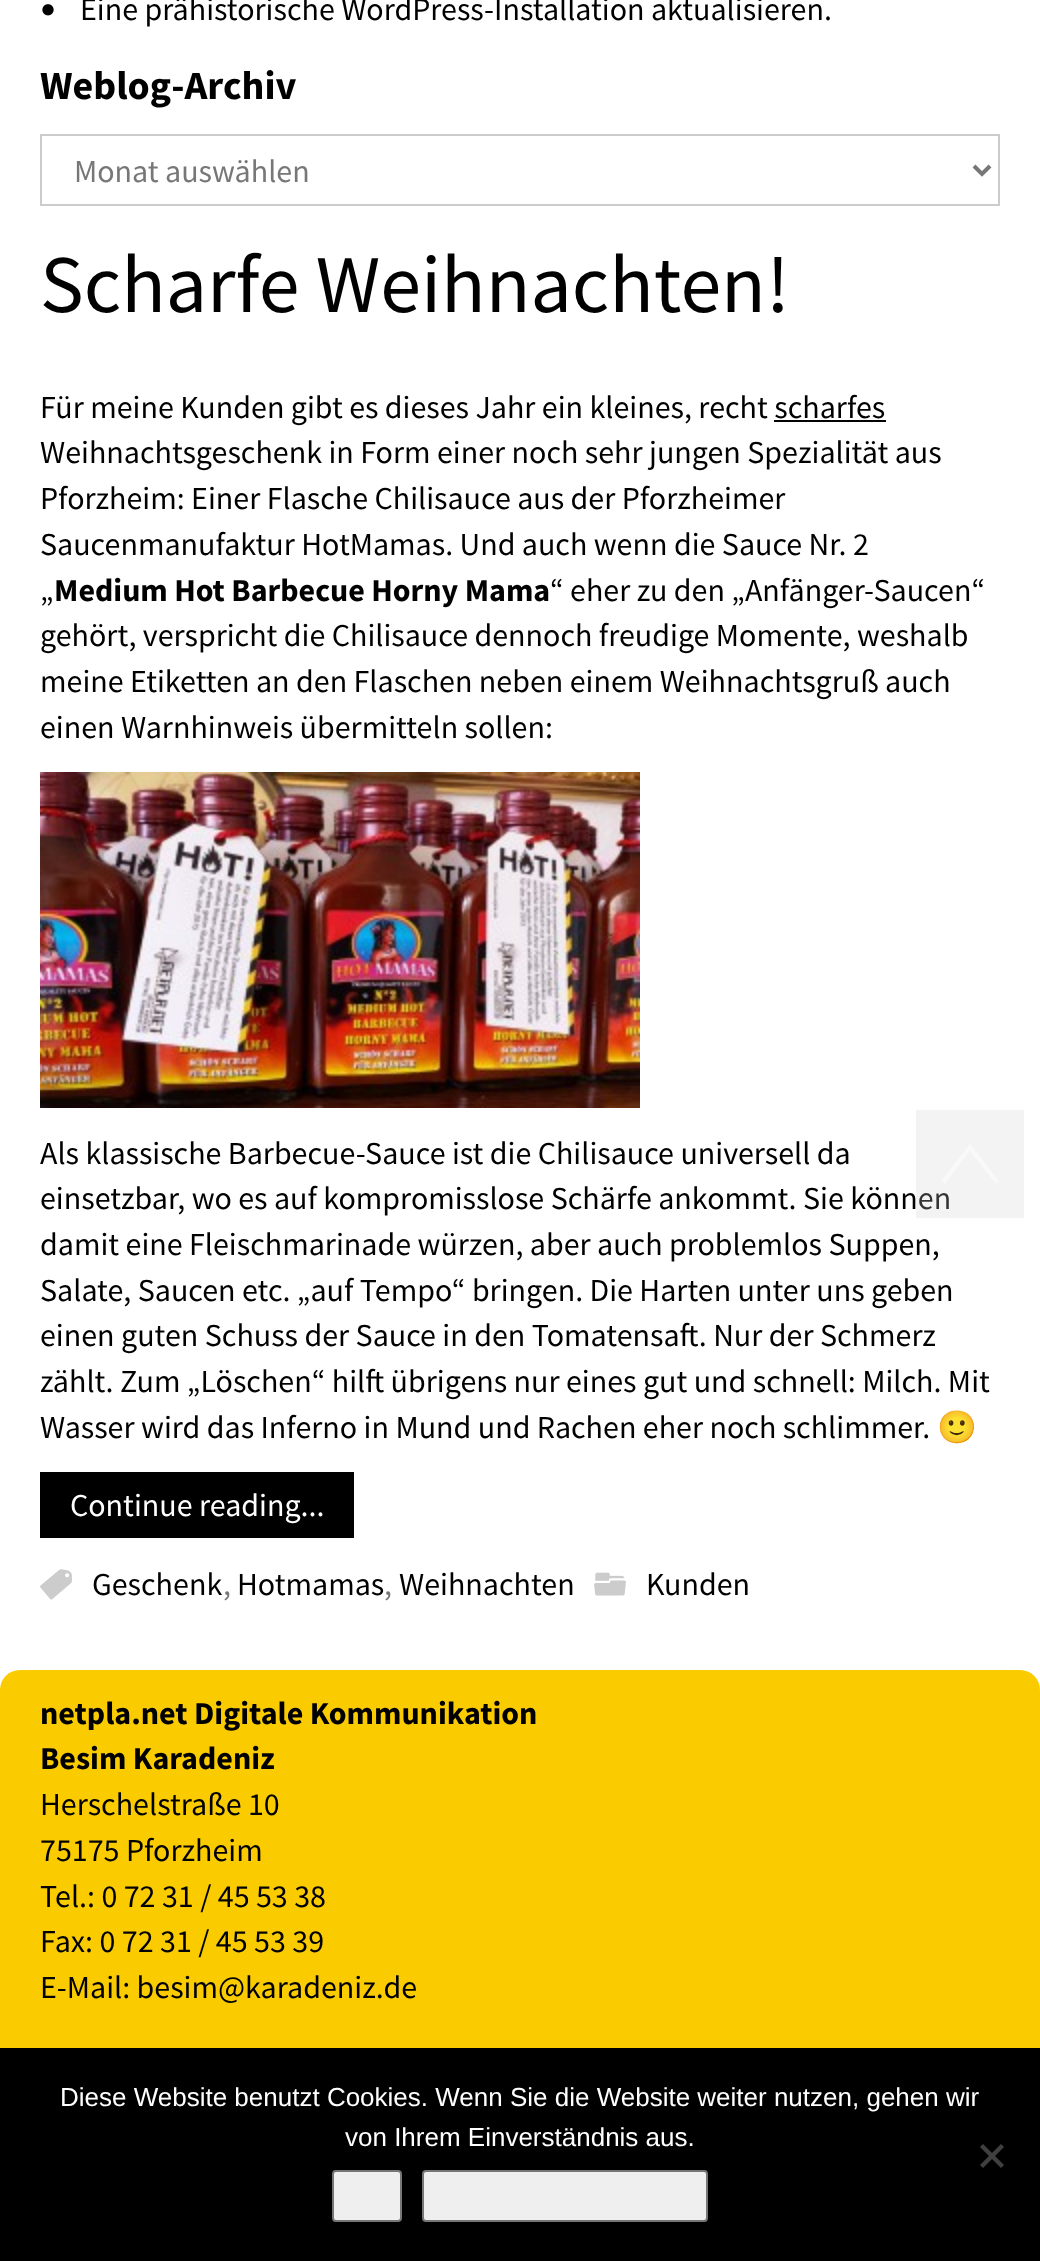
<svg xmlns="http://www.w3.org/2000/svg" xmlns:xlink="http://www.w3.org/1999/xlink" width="1040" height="2261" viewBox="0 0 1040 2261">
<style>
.cls-1{font:32px Source Sans Pro;fill:#000000}
.cls-2{font:bold 40px Source Sans Pro;fill:#000000}
.cls-3{font:32px Source Sans Pro;fill:#777777}
.cls-4{font:82px Source Sans Pro;fill:#000000}
.cls-5{font:bold 32px Source Sans Pro;fill:#000000}
.cls-6{font:32px Noto Color Emoji;fill:#000000}
.cls-7{font:32px Source Sans Pro;fill:#ffffff}
.cls-8{font:26px Liberation Sans;fill:#ffffff}
</style>
<rect width="100%" height="100%" fill="#ffffff"/>
<image xlink:href="image0.png" x="42" y="4" width="12" height="12"/>
<rect fill="none" stroke="#cccccc" stroke-width="2" x="41" y="135" width="958" height="70"/>
<path fill="none" stroke="#777777" stroke-width="4" d="M974 166L982 174L990 166"/>
<rect fill="#000000" x="774" y="420" width="112" height="2"/>
<image xlink:href="image1.png" x="40" y="772" width="600" height="336"/>
<rect fill="#000000" x="40" y="1472" width="314" height="66"/>
<image xlink:href="image2.png" x="40" y="1569" width="32" height="31"/>
<image xlink:href="image3.png" x="594" y="1572" width="32" height="24"/>
<rect fill="#facc00" x="0" y="1670" width="1040" height="552" rx="20"/>
<rect fill="#000000" x="0" y="2048" width="1040" height="213"/>
<path fill="#404040" d="M1001 2144L1004 2147L983 2168L980 2165Z"/>
<path fill="#404040" d="M980 2147L983 2144L1004 2165L1001 2168Z"/>
<rect fill="#efefef" stroke="#767676" stroke-width="2" x="333" y="2171" width="68" height="50" rx="3"/>
<rect fill="#efefef" stroke="#767676" stroke-width="2" x="423" y="2171" width="284" height="50" rx="3"/>
<text class="cls-1" x="80" y="20">Eine prähistorische WordPress-Installation aktualisieren.</text>
<text class="cls-2" x="40" y="99">Weblog-Archiv</text>
<text class="cls-3" x="74" y="182">Monat auswählen</text>
<text class="cls-4" x="40" y="312">Scharfe Weihnachten!</text>
<text class="cls-1"><tspan x="40" y="418">Für meine Kunden gibt es dieses Jahr ein kleines, recht scharfes</tspan><tspan x="40" y="463">Weihnachtsgeschenk in Form einer noch sehr jungen Spezialität aus</tspan><tspan x="40" y="509">Pforzheim: Einer Flasche Chilisauce aus der Pforzheimer</tspan><tspan x="40" y="555">Saucenmanufaktur HotMamas. Und auch wenn die Sauce Nr. 2</tspan><tspan x="40" y="601">„</tspan></text>
<text class="cls-5" x="54" y="601">Medium Hot Barbecue Horny Mama</text>
<text class="cls-1" x="550" y="601">“ eher zu den „Anfänger-Saucen“</text>
<text class="cls-1"><tspan x="40" y="646">gehört, verspricht die Chilisauce dennoch freudige Momente, weshalb</tspan><tspan x="40" y="692">meine Etiketten an den Flaschen neben einem Weihnachtsgruß auch</tspan><tspan x="40" y="738">einen Warnhinweis übermitteln sollen:</tspan></text>
<text class="cls-1"><tspan x="40" y="1164">Als klassische Barbecue-Sauce ist die Chilisauce universell da</tspan><tspan x="40" y="1209">einsetzbar, wo es auf kompromisslose Schärfe ankommt. Sie können</tspan><tspan x="40" y="1255">damit eine Fleischmarinade würzen, aber auch problemlos Suppen,</tspan><tspan x="40" y="1301">Salate, Saucen etc. „auf Tempo“ bringen. Die Harten unter uns geben</tspan><tspan x="40" y="1346">einen guten Schuss der Sauce in den Tomatensaft. Nur der Schmerz</tspan><tspan x="40" y="1392">zählt. Zum „Löschen“ hilft übrigens nur eines gut und schnell: Milch. Mit</tspan><tspan x="40" y="1438">Wasser wird das Inferno in Mund und Rachen eher noch schlimmer.</tspan></text>
<text class="cls-6" x="937" y="1438">🙂</text>
<text class="cls-7" x="70" y="1516">Continue reading...</text>
<text class="cls-1" x="92" y="1595">Geschenk</text>
<text class="cls-3" x="223" y="1595">,</text>
<text class="cls-1" x="237" y="1595">Hotmamas</text>
<text class="cls-3" x="384" y="1595">,</text>
<text class="cls-1" x="399" y="1595">Weihnachten</text>
<text class="cls-1" x="646" y="1595">Kunden</text>
<rect fill="#d0d0d0" fill-opacity="0.25" x="916" y="1110" width="108" height="108"/>
<path fill="#f9f9f9" d="M970 1144L999 1181L996 1184L970 1151L945 1184L941 1181Z"/>
<text class="cls-5"><tspan x="40" y="1724">netpla.net Digitale Kommunikation</tspan><tspan x="40" y="1769">Besim Karadeniz</tspan></text>
<text class="cls-1"><tspan x="40" y="1815">Herschelstraße 10</tspan><tspan x="40" y="1861">75175 Pforzheim</tspan><tspan x="40" y="1907">Tel.: 0 72 31 / 45 53 38</tspan><tspan x="40" y="1952">Fax: 0 72 31 / 45 53 39</tspan><tspan x="40" y="1998">E-Mail: besim@karadeniz.de</tspan></text>
<text class="cls-8" x="60" y="2106">Diese Website benutzt Cookies. Wenn Sie die Website weiter nutzen, gehen wir</text>
<text class="cls-8" x="345" y="2146">von Ihrem Einverständnis aus.</text>
</svg>
